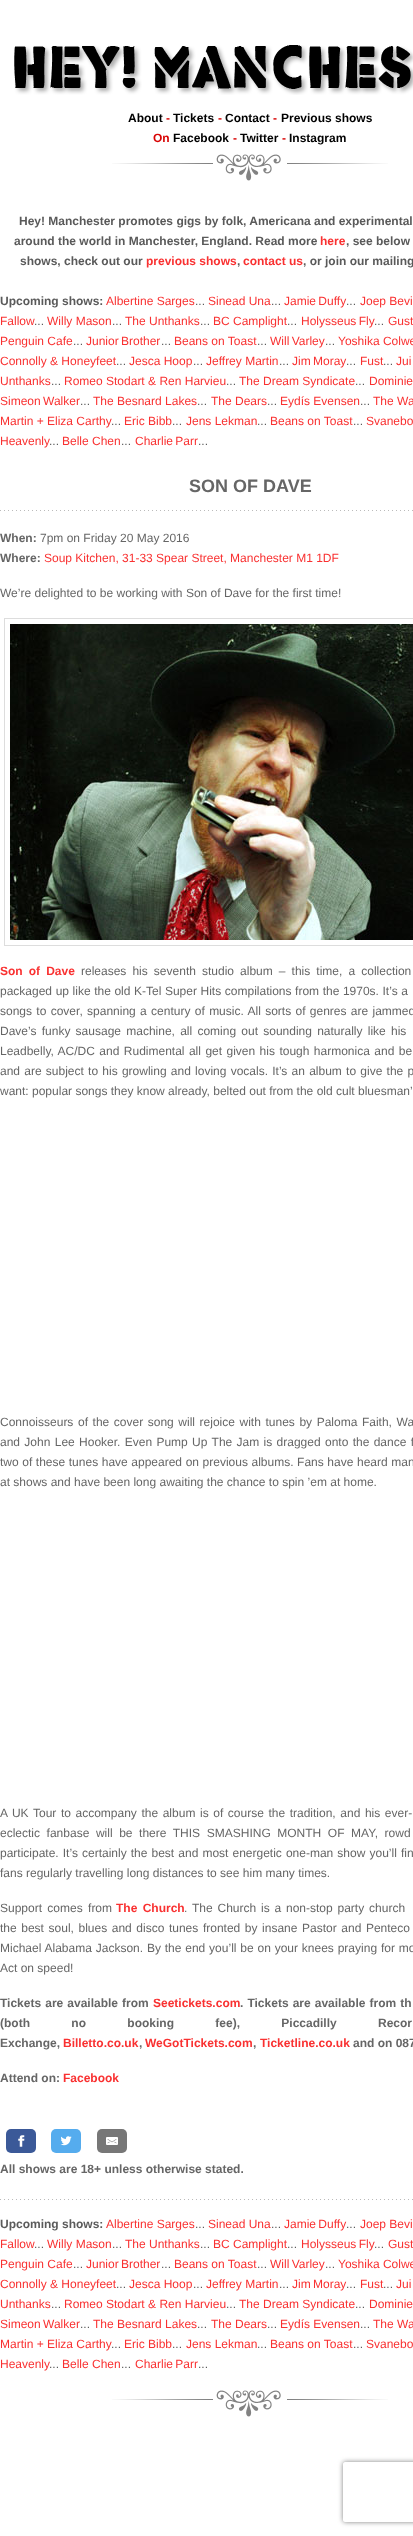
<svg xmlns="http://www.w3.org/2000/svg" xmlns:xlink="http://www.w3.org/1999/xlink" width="413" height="2536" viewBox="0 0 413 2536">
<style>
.cls-1{font:bold 12px Liberation Sans;fill:#000000}
.cls-2{font:bold 12px Liberation Sans;fill:#d80303}
.cls-3{font:bold 12px Liberation Sans;fill:#5a5a5a}
.cls-4{font:bold 12px Liberation Sans;fill:#f93131}
.cls-5{font:12px Liberation Sans;fill:#f93131}
.cls-6{font:12px Liberation Sans;fill:#5a5a5a}
.cls-7{font:bold 18px Liberation Sans;fill:#666666}
.cls-8{font:bold 12px Liberation Sans;fill:#666666}
.cls-9{font:12px Liberation Sans;fill:#666666}
</style>
<defs>
<clipPath id="clip1"><path d="M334 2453H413V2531H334ZM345 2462H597C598 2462 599 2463 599 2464V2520C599 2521 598 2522 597 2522H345C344 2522 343 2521 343 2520V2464C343 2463 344 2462 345 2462Z" clip-rule="evenodd"/></clipPath>
</defs>
<rect width="100%" height="100%" fill="#ffffff"/>
<image xlink:href="image0.png" x="112" y="154" width="276" height="27"/>
<image xlink:href="image1.png" x="14" y="45" width="399" height="50"/>
<image xlink:href="image2.png" x="0" y="510" width="413" height="1"/>
<rect fill="none" stroke="#dddddd" x="4.5" y="618.5" width="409" height="327"/>
<image xlink:href="image3.png" x="10" y="624" width="403" height="316"/>
<rect fill="#3b5998" x="6" y="2129" width="30" height="24" rx="5"/>
<image xlink:href="image4.png" x="18" y="2135" width="7" height="12"/>
<rect fill="#55acee" x="51" y="2129" width="30" height="24" rx="5"/>
<image xlink:href="image5.png" x="60" y="2136" width="12" height="10"/>
<rect fill="#777777" x="97" y="2129" width="30" height="24" rx="5"/>
<image xlink:href="image6.png" x="106" y="2137" width="12" height="8"/>
<image xlink:href="image2.png" x="0" y="2199" width="413" height="1"/>
<image xlink:href="image0.png" x="112" y="2390" width="276" height="27"/>
<g clip-path="url(#clip1)">
<rect fill="#808080" filter="blur(2.5px)" x="343" y="2462" width="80" height="60" rx="2"/>
</g>
<text class="cls-1" x="128" y="122">About</text>
<text class="cls-2" x="166" y="122">-</text>
<text class="cls-1" x="173" y="122">Tickets</text>
<text class="cls-2" x="218" y="122">-</text>
<text class="cls-1" x="225" y="122">Contact</text>
<text class="cls-2" x="273" y="122">-</text>
<text class="cls-1" x="281" y="122">Previous shows</text>
<text class="cls-2" x="153" y="142">On</text>
<text class="cls-1" x="173" y="142">Facebook</text>
<text class="cls-2" x="233" y="142">-</text>
<text class="cls-1" x="240" y="142">Twitter</text>
<text class="cls-2" x="282" y="142">-</text>
<text class="cls-1" x="289" y="142">Instagram</text>
<text class="cls-3" x="19" y="225">Hey! Manchester promotes gigs by folk, Americana and experimental</text>
<text class="cls-3" x="14" y="245">around the world in Manchester, England. Read more</text>
<text class="cls-4" x="320" y="245">here</text>
<text class="cls-3" x="346" y="245">, see below</text>
<text class="cls-3" x="20" y="265">shows, check out our</text>
<text class="cls-4" x="146" y="265">previous shows</text>
<text class="cls-3" x="237" y="265">,</text>
<text class="cls-4" x="243" y="265">contact us</text>
<text class="cls-3" x="303" y="265">, or join our mailing</text>
<text class="cls-3" x="0" y="305">Upcoming shows:</text>
<text class="cls-5" x="106" y="305">Albertine Sarges</text>
<text class="cls-6" x="195" y="305">...</text>
<text class="cls-5" x="208" y="305">Sinead Una</text>
<text class="cls-6" x="271" y="305">...</text>
<text class="cls-5" x="284" y="305" word-spacing="-1">Jamie Duffy</text>
<text class="cls-6" x="346" y="305">...</text>
<text class="cls-5" x="360" y="305">Joep Bevi</text>
<text class="cls-5" x="0" y="325">Fallow</text>
<text class="cls-6" x="34" y="325">...</text>
<text class="cls-5" x="47" y="325">Willy Mason</text>
<text class="cls-6" x="112" y="325">...</text>
<text class="cls-5" x="125" y="325">The Unthanks</text>
<text class="cls-6" x="200" y="325">...</text>
<text class="cls-5" x="213" y="325">BC Camplight</text>
<text class="cls-6" x="287" y="325">...</text>
<text class="cls-5" x="301" y="325" word-spacing="-1">Holysseus Fly</text>
<text class="cls-6" x="374" y="325">...</text>
<text class="cls-5" x="388" y="325">Gust</text>
<text class="cls-5" x="0" y="345">Penguin Cafe</text>
<text class="cls-6" x="73" y="345">...</text>
<text class="cls-5" x="86" y="345" word-spacing="-1">Junior Brother</text>
<text class="cls-6" x="161" y="345">...</text>
<text class="cls-5" x="174" y="345">Beans on Toast</text>
<text class="cls-6" x="257" y="345">...</text>
<text class="cls-5" x="270" y="345" word-spacing="-1">Will Varley</text>
<text class="cls-6" x="325" y="345">...</text>
<text class="cls-5" x="338" y="345">Yoshika Colwe</text>
<text class="cls-5" x="0" y="365">Connolly &amp; Honeyfeet</text>
<text class="cls-6" x="116" y="365">...</text>
<text class="cls-5" x="129" y="365">Jesca Hoop</text>
<text class="cls-6" x="193" y="365">...</text>
<text class="cls-5" x="206" y="365">Jeffrey Martin</text>
<text class="cls-6" x="279" y="365">...</text>
<text class="cls-5" x="292" y="365" word-spacing="-1">Jim Moray</text>
<text class="cls-6" x="346" y="365">...</text>
<text class="cls-5" x="360" y="365">Fust</text>
<text class="cls-6" x="383" y="365">...</text>
<text class="cls-5" x="396" y="365">Jui</text>
<text class="cls-5" x="0" y="385">Unthanks</text>
<text class="cls-6" x="51" y="385">...</text>
<text class="cls-5" x="64" y="385">Romeo Stodart &amp; Ren Harvieu</text>
<text class="cls-6" x="226" y="385">...</text>
<text class="cls-5" x="239" y="385">The Dream Syndicate</text>
<text class="cls-6" x="355" y="385">...</text>
<text class="cls-5" x="369" y="385" word-spacing="-1">Dominie</text>
<text class="cls-5" x="0" y="405" word-spacing="-1">Simeon Walker</text>
<text class="cls-6" x="80" y="405">...</text>
<text class="cls-5" x="93" y="405">The Besnard Lakes</text>
<text class="cls-6" x="197" y="405">...</text>
<text class="cls-5" x="211" y="405">The Dears</text>
<text class="cls-6" x="267" y="405">...</text>
<text class="cls-5" x="280" y="405">Eydís Evensen</text>
<text class="cls-6" x="360" y="405">...</text>
<text class="cls-5" x="373" y="405">The Wa</text>
<text class="cls-5" x="0" y="425">Martin + Eliza Carthy</text>
<text class="cls-6" x="111" y="425">...</text>
<text class="cls-5" x="124" y="425">Eric Bibb</text>
<text class="cls-6" x="172" y="425">...</text>
<text class="cls-5" x="186" y="425">Jens Lekman</text>
<text class="cls-6" x="257" y="425">...</text>
<text class="cls-5" x="270" y="425">Beans on Toast</text>
<text class="cls-6" x="353" y="425">...</text>
<text class="cls-5" x="366" y="425">Svanebo</text>
<text class="cls-5" x="0" y="445">Heavenly</text>
<text class="cls-6" x="49" y="445">...</text>
<text class="cls-5" x="62" y="445">Belle Chen</text>
<text class="cls-6" x="121" y="445">...</text>
<text class="cls-5" x="135" y="445" word-spacing="-1">Charlie Parr</text>
<text class="cls-6" x="198" y="445">...</text>
<text class="cls-7" x="189" y="492">SON OF DAVE</text>
<text class="cls-8" x="0" y="542">When:</text>
<text class="cls-9" x="40" y="542">7pm on Friday 20 May 2016</text>
<text class="cls-8" x="0" y="562">Where:</text>
<text class="cls-5" x="44" y="562">Soup Kitchen, 31-33 Spear Street, Manchester M1 1DF</text>
<text class="cls-9" x="0" y="597">We’re delighted to be working with Son of Dave for the first time!</text>
<text class="cls-4" x="0" y="975" word-spacing="2.75">Son of Dave</text>
<text class="cls-9" x="81" y="975" word-spacing="2.75">releases his seventh studio album – this time, a collection</text>
<text class="cls-9"><tspan x="0" y="995" word-spacing="0.25">packaged up like the old K-Tel Super Hits compilations from the 1970s. It’s a</tspan><tspan x="0" y="1015" word-spacing="1">songs to cover, spanning a century of music. All sorts of genres are jammed</tspan><tspan x="0" y="1035" word-spacing="1.9">Dave’s funky sausage machine, all coming out sounding naturally like his</tspan><tspan x="0" y="1055" word-spacing="1.1">Leadbelly, AC/DC and Rudimental all get given his tough harmonica and be</tspan><tspan x="0" y="1075" word-spacing="0.9">and are subject to his growling and loving vocals. It’s an album to give the p</tspan><tspan x="0" y="1095">want: popular songs they know already, belted out from the old cult bluesman’</tspan></text>
<text class="cls-9"><tspan x="0" y="1426" word-spacing="1.25">Connoisseurs of the cover song will rejoice with tunes by Paloma Faith, Wa</tspan><tspan x="0" y="1446" word-spacing="1">and John Lee Hooker. Even Pump Up The Jam is dragged onto the dance f</tspan><tspan x="0" y="1466" word-spacing="0.25">two of these tunes have appeared on previous albums. Fans have heard man</tspan><tspan x="0" y="1486">at shows and have been long awaiting the chance to spin ’em at home.</tspan></text>
<text class="cls-9"><tspan x="0" y="1817" word-spacing="1.25">A UK Tour to accompany the album is of course the tradition, and his ever-</tspan><tspan x="0" y="1837" word-spacing="3.25">eclectic fanbase will be there THIS SMASHING MONTH OF MAY, rowd</tspan><tspan x="0" y="1857" word-spacing="0.75">participate. It’s certainly the best and most energetic one-man show you’ll fin</tspan><tspan x="0" y="1877">fans regularly travelling long distances to see him many times.</tspan></text>
<text class="cls-9" x="0" y="1912" word-spacing="2">Support comes from</text>
<text class="cls-4" x="116" y="1912" word-spacing="2">The Church</text>
<text class="cls-9" x="184" y="1912" word-spacing="1.5">. The Church is a non-stop party church</text>
<text class="cls-9"><tspan x="0" y="1932" word-spacing="1.25">the best soul, blues and disco tunes fronted by insane Pastor and Penteco</tspan><tspan x="0" y="1952" word-spacing="0.5">Michael Alabama Jackson. By the end you’ll be on your knees praying for mo</tspan><tspan x="0" y="1972">Act on speed!</tspan></text>
<text class="cls-8" x="0" y="2007" word-spacing="0.75">Tickets are available from</text>
<text class="cls-4" x="153" y="2007">Seetickets.com</text>
<text class="cls-8" x="240" y="2007" word-spacing="0.75">. Tickets are available from th</text>
<text class="cls-8"><tspan x="0" y="2027" word-spacing="38">(both no booking fee), Piccadilly Recor</tspan><tspan x="0" y="2047">Exchange,</tspan></text>
<text class="cls-4" x="63" y="2047">Billetto.co.uk</text>
<text class="cls-8" x="139" y="2047">,</text>
<text class="cls-4" x="145" y="2047">WeGotTickets.com</text>
<text class="cls-8" x="253" y="2047">,</text>
<text class="cls-4" x="260" y="2047">Ticketline.co.uk</text>
<text class="cls-8" x="353" y="2047">and on 087</text>
<text class="cls-8" x="0" y="2082">Attend on:</text>
<text class="cls-4" x="63" y="2082">Facebook</text>
<text class="cls-8" x="0" y="2173">All shows are 18+ unless otherwise stated.</text>
<text class="cls-3" x="0" y="2228">Upcoming shows:</text>
<text class="cls-5" x="106" y="2228">Albertine Sarges</text>
<text class="cls-6" x="195" y="2228">...</text>
<text class="cls-5" x="208" y="2228">Sinead Una</text>
<text class="cls-6" x="271" y="2228">...</text>
<text class="cls-5" x="284" y="2228" word-spacing="-1">Jamie Duffy</text>
<text class="cls-6" x="346" y="2228">...</text>
<text class="cls-5" x="360" y="2228">Joep Bevi</text>
<text class="cls-5" x="0" y="2248">Fallow</text>
<text class="cls-6" x="34" y="2248">...</text>
<text class="cls-5" x="47" y="2248">Willy Mason</text>
<text class="cls-6" x="112" y="2248">...</text>
<text class="cls-5" x="125" y="2248">The Unthanks</text>
<text class="cls-6" x="200" y="2248">...</text>
<text class="cls-5" x="213" y="2248">BC Camplight</text>
<text class="cls-6" x="287" y="2248">...</text>
<text class="cls-5" x="301" y="2248" word-spacing="-1">Holysseus Fly</text>
<text class="cls-6" x="374" y="2248">...</text>
<text class="cls-5" x="388" y="2248">Gust</text>
<text class="cls-5" x="0" y="2268">Penguin Cafe</text>
<text class="cls-6" x="73" y="2268">...</text>
<text class="cls-5" x="86" y="2268" word-spacing="-1">Junior Brother</text>
<text class="cls-6" x="161" y="2268">...</text>
<text class="cls-5" x="174" y="2268">Beans on Toast</text>
<text class="cls-6" x="257" y="2268">...</text>
<text class="cls-5" x="270" y="2268" word-spacing="-1">Will Varley</text>
<text class="cls-6" x="325" y="2268">...</text>
<text class="cls-5" x="338" y="2268">Yoshika Colwe</text>
<text class="cls-5" x="0" y="2288">Connolly &amp; Honeyfeet</text>
<text class="cls-6" x="116" y="2288">...</text>
<text class="cls-5" x="129" y="2288">Jesca Hoop</text>
<text class="cls-6" x="193" y="2288">...</text>
<text class="cls-5" x="206" y="2288">Jeffrey Martin</text>
<text class="cls-6" x="279" y="2288">...</text>
<text class="cls-5" x="292" y="2288" word-spacing="-1">Jim Moray</text>
<text class="cls-6" x="346" y="2288">...</text>
<text class="cls-5" x="360" y="2288">Fust</text>
<text class="cls-6" x="383" y="2288">...</text>
<text class="cls-5" x="396" y="2288">Jui</text>
<text class="cls-5" x="0" y="2308">Unthanks</text>
<text class="cls-6" x="51" y="2308">...</text>
<text class="cls-5" x="64" y="2308">Romeo Stodart &amp; Ren Harvieu</text>
<text class="cls-6" x="226" y="2308">...</text>
<text class="cls-5" x="239" y="2308">The Dream Syndicate</text>
<text class="cls-6" x="355" y="2308">...</text>
<text class="cls-5" x="369" y="2308" word-spacing="-1">Dominie</text>
<text class="cls-5" x="0" y="2328" word-spacing="-1">Simeon Walker</text>
<text class="cls-6" x="80" y="2328">...</text>
<text class="cls-5" x="93" y="2328">The Besnard Lakes</text>
<text class="cls-6" x="197" y="2328">...</text>
<text class="cls-5" x="211" y="2328">The Dears</text>
<text class="cls-6" x="267" y="2328">...</text>
<text class="cls-5" x="280" y="2328">Eydís Evensen</text>
<text class="cls-6" x="360" y="2328">...</text>
<text class="cls-5" x="373" y="2328">The Wa</text>
<text class="cls-5" x="0" y="2348">Martin + Eliza Carthy</text>
<text class="cls-6" x="111" y="2348">...</text>
<text class="cls-5" x="124" y="2348">Eric Bibb</text>
<text class="cls-6" x="172" y="2348">...</text>
<text class="cls-5" x="186" y="2348">Jens Lekman</text>
<text class="cls-6" x="257" y="2348">...</text>
<text class="cls-5" x="270" y="2348">Beans on Toast</text>
<text class="cls-6" x="353" y="2348">...</text>
<text class="cls-5" x="366" y="2348">Svanebo</text>
<text class="cls-5" x="0" y="2368">Heavenly</text>
<text class="cls-6" x="49" y="2368">...</text>
<text class="cls-5" x="62" y="2368">Belle Chen</text>
<text class="cls-6" x="121" y="2368">...</text>
<text class="cls-5" x="135" y="2368" word-spacing="-1">Charlie Parr</text>
<text class="cls-6" x="198" y="2368">...</text>
</svg>
